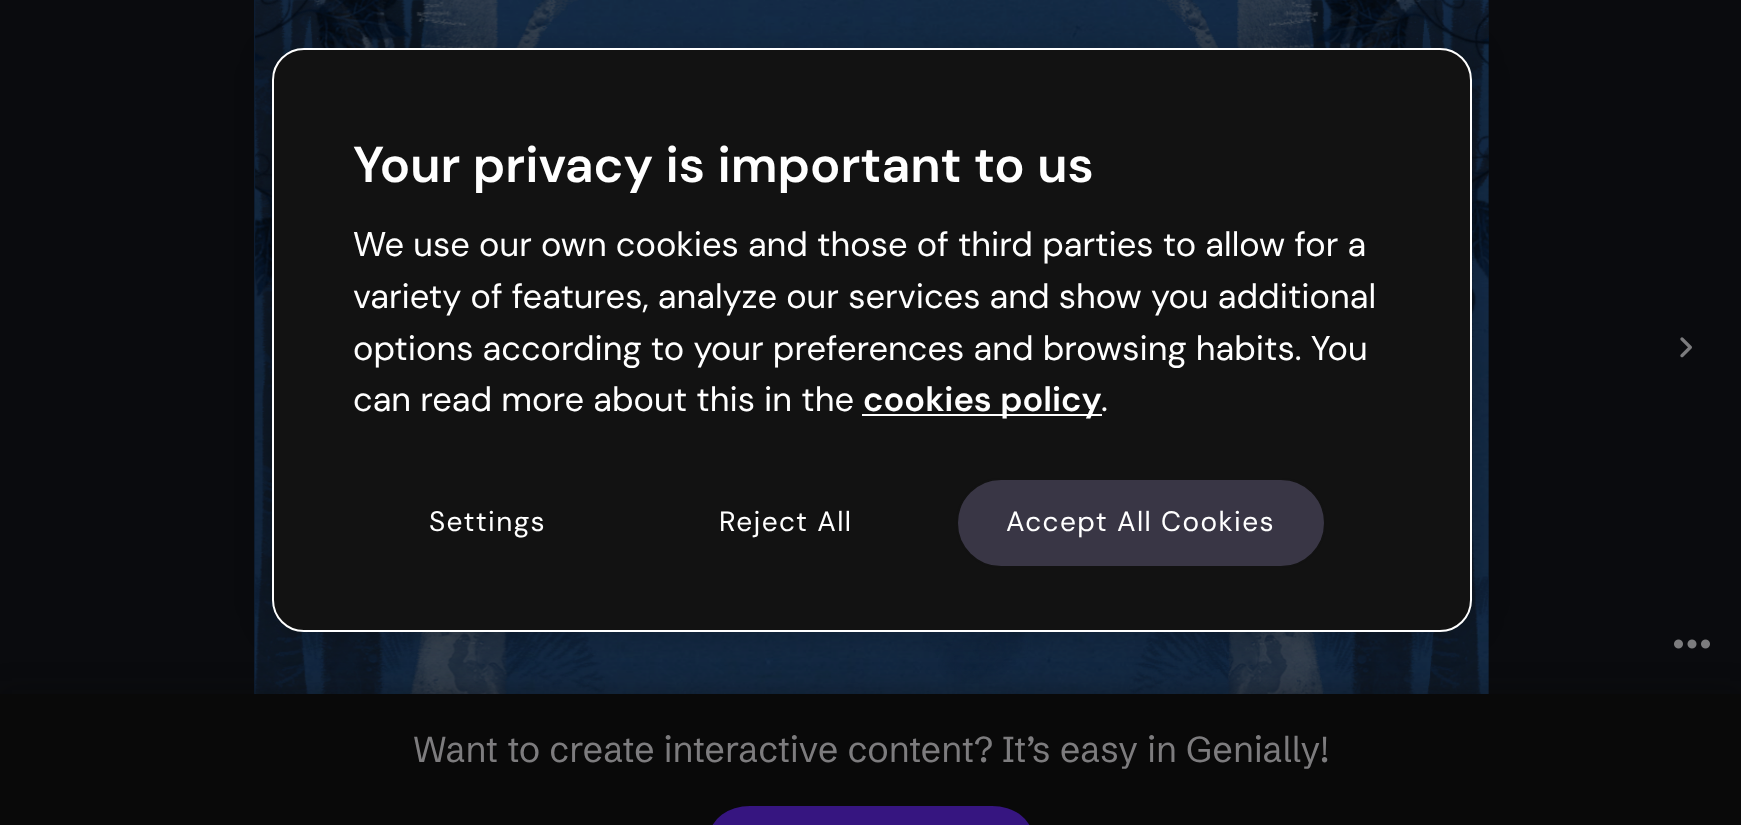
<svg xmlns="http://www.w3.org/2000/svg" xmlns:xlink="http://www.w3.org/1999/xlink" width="1741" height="825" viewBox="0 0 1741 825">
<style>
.cls-1{font:600 50.4px DM Sans;fill:#ffffff}
.cls-2{font:34.45px DM Sans;fill:#ffffff}
.cls-3{font:600 34.45px DM Sans;fill:#ffffff}
.cls-4{font:28px DM Sans;letter-spacing:1.4px;fill:#ffffff}
.cls-5{font:36px Schibsted Grotesk;fill:#7d7c7e}
</style>
<rect width="100%" height="100%" fill="#0a0b0e"/>
<rect fill="#0d1d32" x="254" y="0" width="1" height="694"/>
<image xlink:href="image0.png" x="255" y="0" width="1234" height="694"/>
<image xlink:href="image1.png" x="255" y="0" width="350" height="694"/>
<image xlink:href="image2.png" x="255" y="0" width="156" height="48"/>
<image xlink:href="image7.png" x="922" y="632" width="319" height="52"/>
<image xlink:href="image3.png" x="1129" y="0" width="360" height="694"/>
<image xlink:href="image6.png" x="1472" y="36" width="17" height="280"/>
<image xlink:href="image4.png" x="1316" y="0" width="173" height="66"/>
<image xlink:href="image5.png" x="255" y="52" width="17" height="269"/>
<rect fill="#000000" fill-opacity="0.2" filter="blur(18px)" x="272" y="48" width="1200" height="584" rx="32"/>
<rect fill="#121212" stroke="#ffffff" stroke-width="2" x="273" y="49" width="1198" height="582" rx="31"/>
<rect fill="#ffffff" x="862" y="414" width="240" height="2"/>
<rect fill="#393645" stroke="#121212" stroke-width="2" x="957" y="479" width="368" height="88" rx="44"/>
<image xlink:href="image8.png" x="1680" y="337" width="12" height="21"/>
<image xlink:href="image9.png" x="1674" y="639" width="36" height="10"/>
<rect fill="#090909" fill-opacity="0.3" filter="blur(13px)" x="0" y="690" width="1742" height="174"/>
<rect fill="#090909" x="0" y="694" width="1741" height="131"/>
<rect fill="#361580" x="710" y="806" width="322" height="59" rx="40"/>
<text class="cls-1" x="353" y="182">Your privacy is important to us</text>
<text class="cls-2"><tspan x="353" y="256">We use our own cookies and those of third parties to allow for a</tspan><tspan x="353" y="308">variety of features, analyze our services and show you additional</tspan><tspan x="353" y="360">options according to your preferences and browsing habits. You</tspan><tspan x="353" y="411">can read more about this in the</tspan></text>
<text class="cls-3" x="863" y="411">cookies policy</text>
<text class="cls-2" x="1101" y="411">.</text>
<text class="cls-4" x="429" y="531">Settings</text>
<text class="cls-4" x="719" y="531">Reject All</text>
<text class="cls-4" x="1006" y="531">Accept All Cookies</text>
<text class="cls-5" x="413" y="762">Want to create interactive content? It’s easy in Genially!</text>
</svg>
